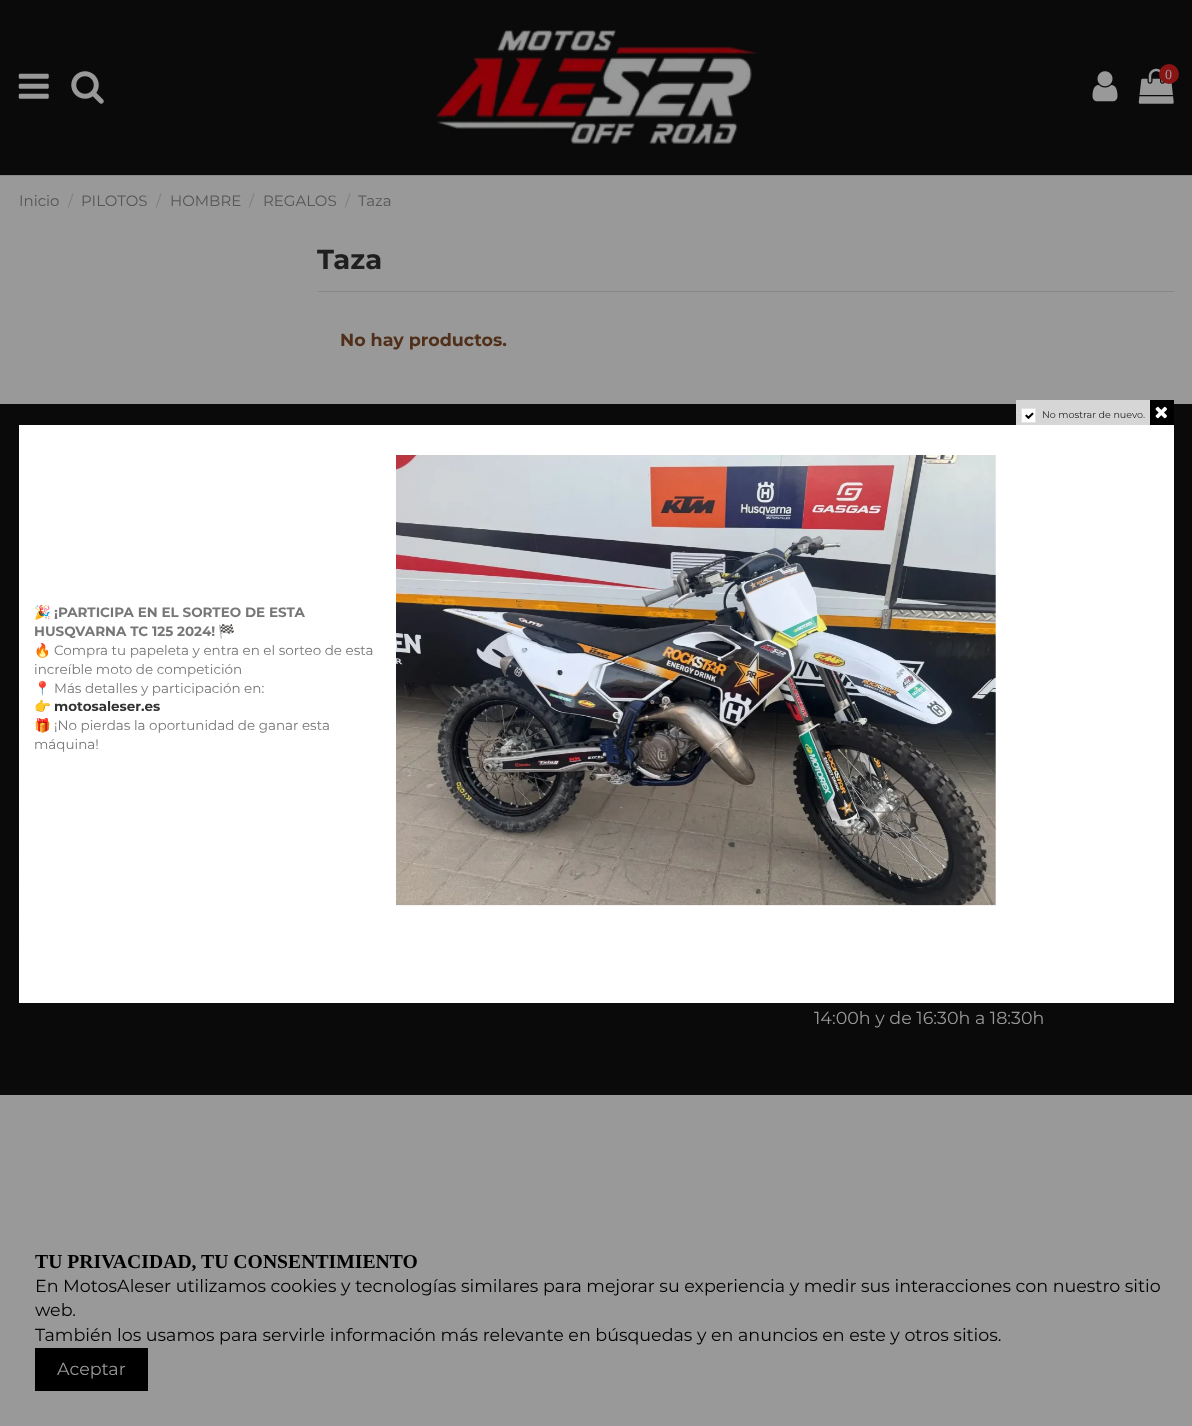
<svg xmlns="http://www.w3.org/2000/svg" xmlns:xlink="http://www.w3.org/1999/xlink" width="1192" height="1426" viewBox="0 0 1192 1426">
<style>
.cls-1{font:14px Liberation Serif;fill:#999999}
.cls-2{font:15px Montserrat;fill:#565656}
.cls-3{font:15px Montserrat;fill:#7e7e7e}
.cls-4{font:bold 27.5px Montserrat;fill:#1f1f1f}
.cls-5{font:bold 17.5px Montserrat;fill:#50301a}
.cls-6{font:17.5px Montserrat;fill:#999999}
.cls-7{font:9.6px Montserrat;fill:#212529}
.cls-8{font:13.5px Noto Color Emoji;fill:#777777}
.cls-9{font:bold 13.5px Montserrat;fill:#777777}
.cls-10{font:13.5px Montserrat;fill:#777777}
.cls-11{font:bold 13.5px Montserrat;fill:#333333}
.cls-12{font:bold 19.7px Liberation Serif;fill:#000000}
.cls-13{font:17.5px Montserrat;fill:#000000}
</style>
<rect width="100%" height="100%" fill="#999999"/>
<rect fill="#0a0a0a" x="0" y="0" width="1192" height="175"/>
<rect fill="#888888" x="0" y="175" width="1192" height="1"/>
<image xlink:href="image0.png" x="18" y="73" width="31" height="26"/>
<image xlink:href="image1.png" x="71" y="71" width="33" height="33"/>
<image xlink:href="image2.png" x="436" y="30" width="322" height="114"/>
<image xlink:href="image3.png" x="1092" y="71" width="26" height="31"/>
<image xlink:href="image4.png" x="1138" y="68" width="36" height="36"/>
<circle fill="#881414" cx="1169" cy="74" r="10"/>
<rect fill="#888888" x="318" y="291" width="856" height="1"/>
<rect fill="#0a0a0a" x="0" y="404" width="1192" height="691"/>
<image xlink:href="image5.png" x="18" y="693" width="1" height="1"/>
<image xlink:href="image6.png" x="18" y="717" width="1" height="8"/>
<image xlink:href="image7.png" x="18" y="748" width="1" height="9"/>
<image xlink:href="image8.png" x="18" y="779" width="1" height="9"/>
<image xlink:href="image6.png" x="18" y="812" width="1" height="8"/>
<image xlink:href="image7.png" x="18" y="843" width="1" height="9"/>
<image xlink:href="image8.png" x="18" y="874" width="1" height="9"/>
<image xlink:href="image5.png" x="18" y="913" width="1" height="1"/>
<image xlink:href="image6.png" x="18" y="937" width="1" height="8"/>
<rect fill="#ffffff" x="19" y="425" width="1155" height="578"/>
<rect fill="#d6d6d6" x="1016" y="400" width="134" height="25"/>
<rect fill="#ffffff" stroke="#e3e3e3" x="1021.5" y="408.5" width="14" height="14"/>
<image xlink:href="image9.png" x="1025" y="412" width="9" height="7"/>
<rect fill="#000000" x="1150" y="400" width="24" height="25"/>
<image xlink:href="image10.png" x="1155" y="406" width="12" height="13"/>
<image xlink:href="image11.png" x="396" y="455" width="600" height="451"/>
<rect fill="#000000" x="35" y="1348" width="113" height="43"/>
<text class="cls-1" x="1165" y="79">0</text>
<text class="cls-2" x="19" y="206">Inicio</text>
<text class="cls-3" x="68" y="206">/</text>
<text class="cls-2" x="81" y="206">PILOTOS</text>
<text class="cls-3" x="156" y="206">/</text>
<text class="cls-2" x="170" y="206">HOMBRE</text>
<text class="cls-3" x="249" y="206">/</text>
<text class="cls-2" x="263" y="206">REGALOS</text>
<text class="cls-3" x="345" y="206">/</text>
<text class="cls-2" x="358" y="206">Taza</text>
<text class="cls-4" x="317" y="269">Taza</text>
<text class="cls-5" x="340" y="346">No hay productos.</text>
<text class="cls-6" x="814" y="1024">14:00h y de 16:30h a 18:30h</text>
<text class="cls-7" x="1042" y="418">No mostrar de nuevo.</text>
<text class="cls-8" x="34" y="617">🎉</text>
<text class="cls-9" x="54" y="617">¡PARTICIPA EN EL SORTEO DE ESTA</text>
<text class="cls-9" x="34" y="636">HUSQVARNA TC 125 2024!</text>
<text class="cls-8" x="218" y="636">🏁</text>
<text class="cls-8" x="34" y="655">🔥</text>
<text class="cls-10" x="54" y="655">Compra tu papeleta y entra en el sorteo de esta</text>
<text class="cls-10" x="34" y="674">increíble moto de competición</text>
<text class="cls-8" x="34" y="693">📍</text>
<text class="cls-10" x="54" y="693">Más detalles y participación en:</text>
<text class="cls-8" x="34" y="711">👉</text>
<text class="cls-11" x="54" y="711">motosaleser.es</text>
<text class="cls-8" x="34" y="730">🎁</text>
<text class="cls-10" x="54" y="730">¡No pierdas la oportunidad de ganar esta</text>
<text class="cls-10" x="34" y="749">máquina!</text>
<text class="cls-12" x="35" y="1268">TU PRIVACIDAD, TU CONSENTIMIENTO</text>
<text class="cls-13"><tspan x="35" y="1292">En MotosAleser utilizamos cookies y tecnologías similares para mejorar su experiencia y medir sus interacciones con nuestro sitio</tspan><tspan x="35" y="1316">web.</tspan><tspan x="35" y="1341">También los usamos para servirle información más relevante en búsquedas y en anuncios en este y otros sitios.</tspan></text>
<text class="cls-6" x="57" y="1375">Aceptar</text>
</svg>
